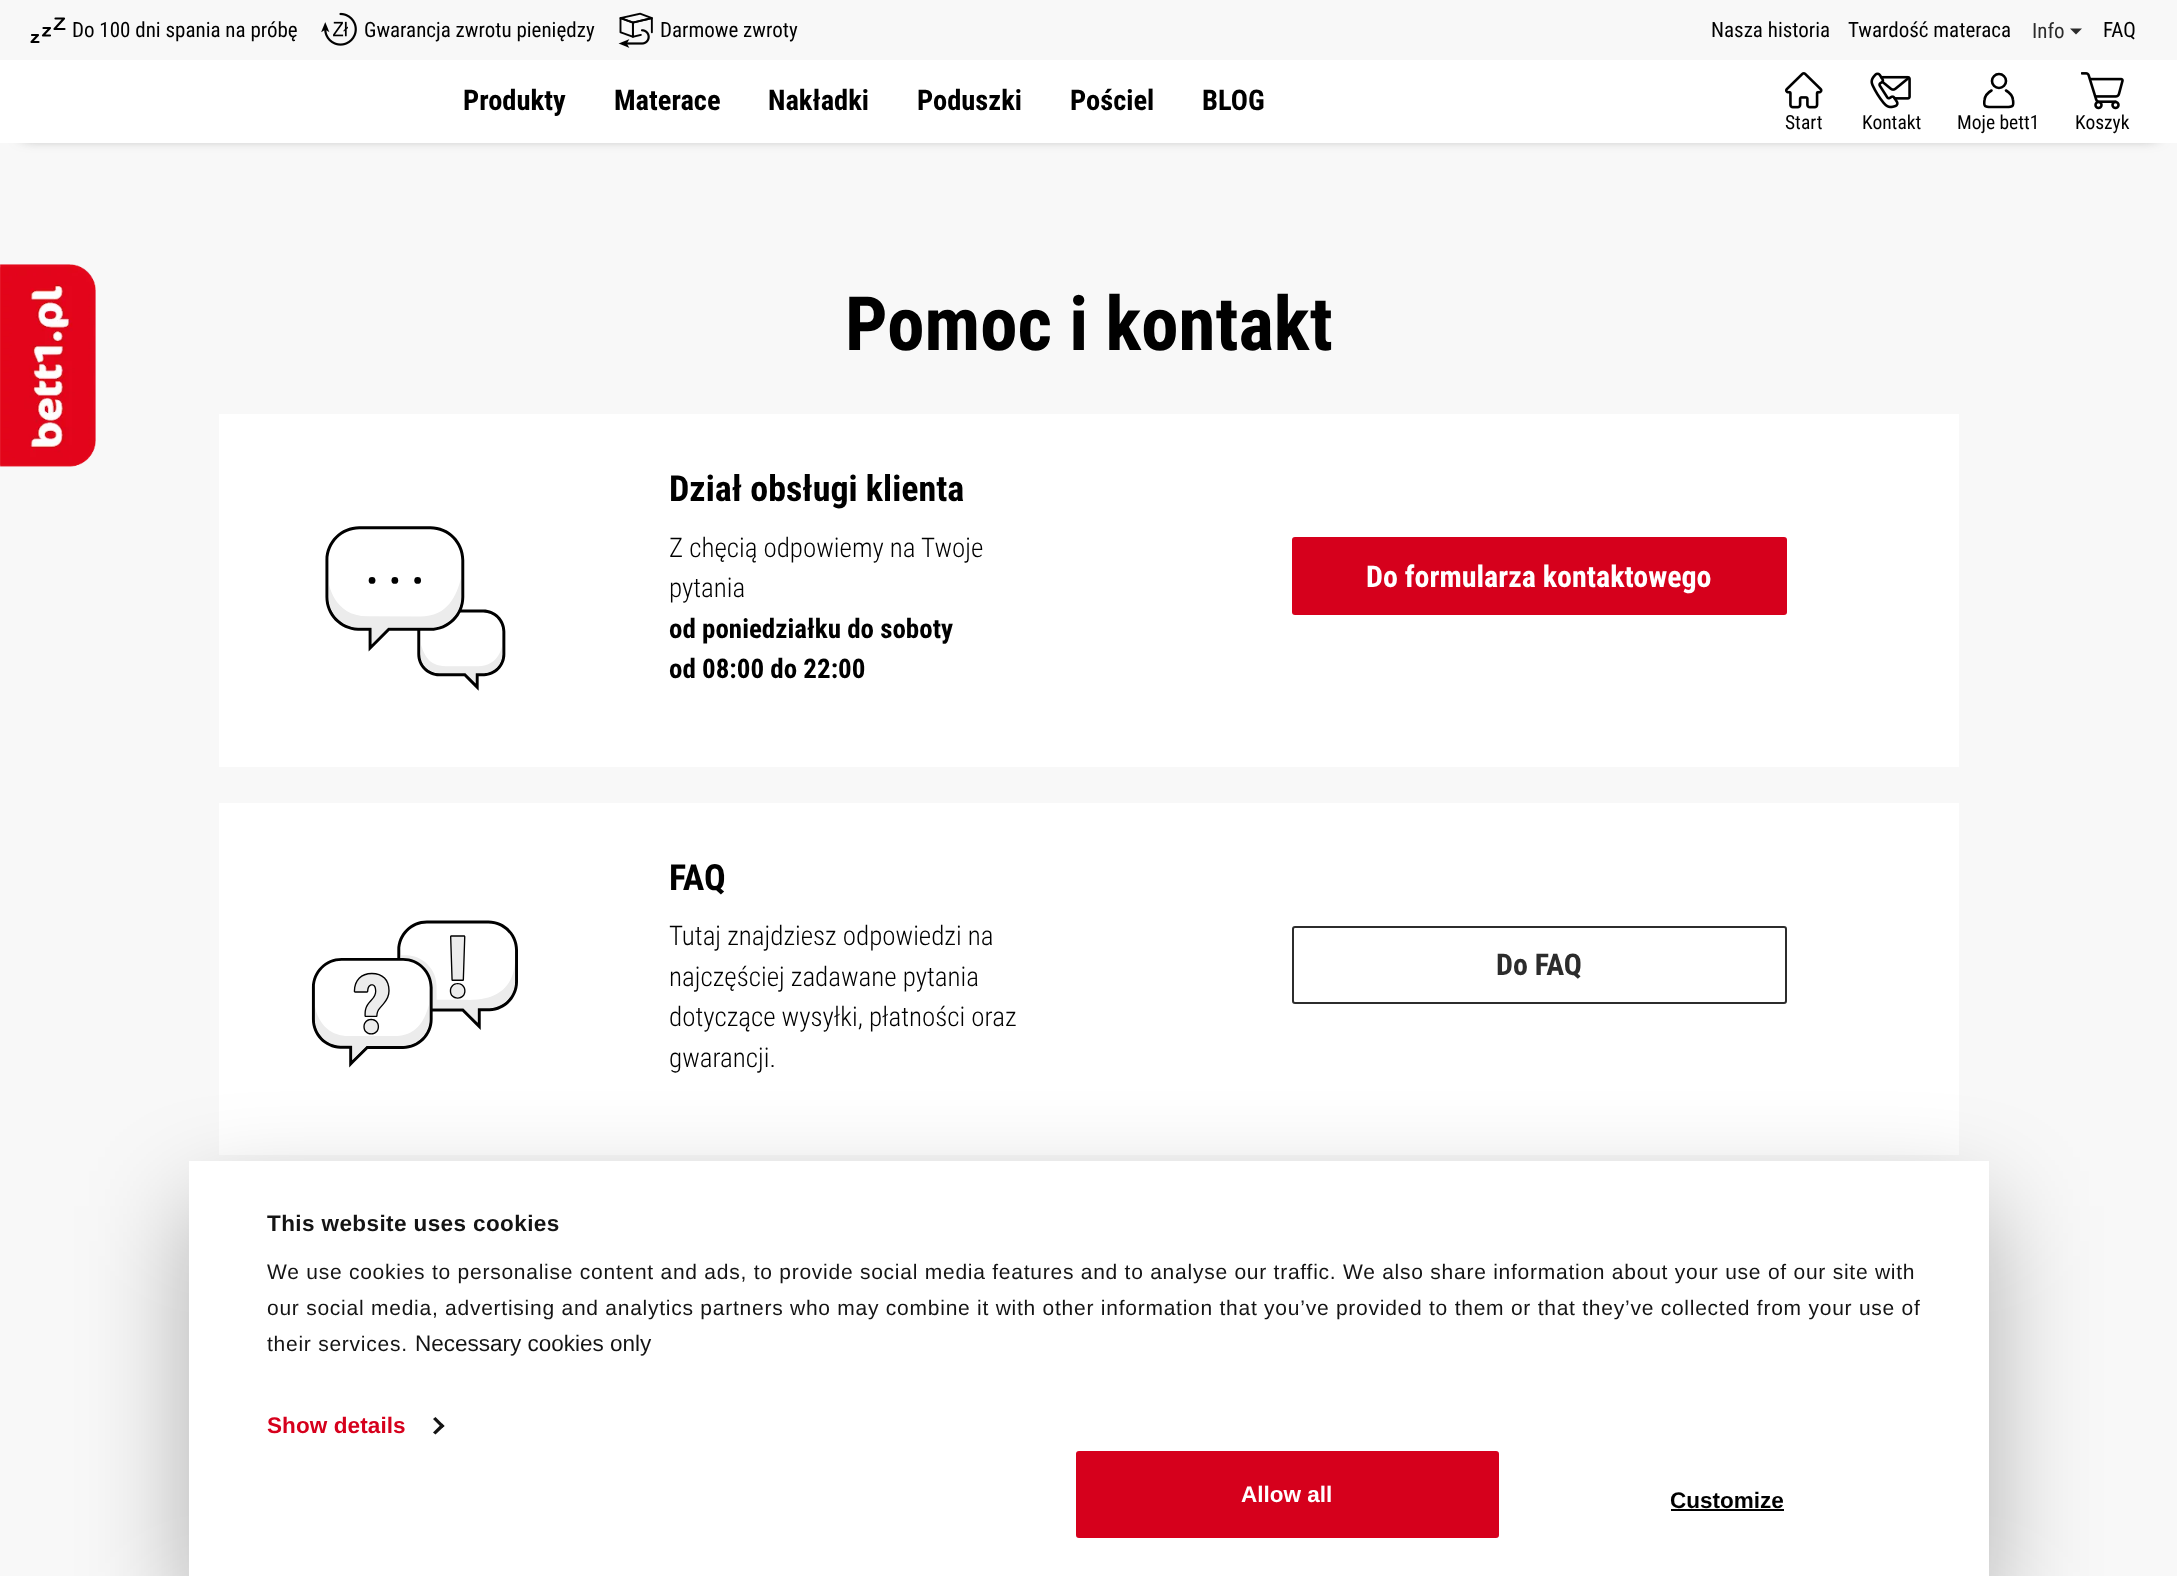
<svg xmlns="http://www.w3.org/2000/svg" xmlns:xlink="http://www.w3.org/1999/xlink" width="2177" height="1576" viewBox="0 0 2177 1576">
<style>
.cls-1{font:21px Roboto Condensed;fill:#000000}
.cls-2{font:21px Roboto Condensed;fill:#2c2c2c}
.cls-3{font:bold 28.5px Roboto Condensed;fill:#000000}
.cls-4{font:19.5px Roboto Condensed;fill:#000000}
.cls-5{font:bold 75px Roboto Condensed;fill:#000000}
.cls-6{font:bold 36px Roboto Condensed;fill:#000000}
.cls-7{font:300 27px Roboto Condensed;fill:#000000}
.cls-8{font:bold 27px Roboto Condensed;fill:#000000}
.cls-9{font:bold 30px Roboto Condensed;fill:#ffffff}
.cls-10{font:bold 30px Roboto Condensed;fill:#2c2c2c}
.cls-11{font:bold 22.5px Liberation Sans;letter-spacing:0.4px;fill:#141414}
.cls-12{font:21px Liberation Sans;letter-spacing:0.75px;fill:#141414}
.cls-13{font:22.5px Liberation Sans;fill:#141414}
.cls-14{font:bold 22.5px Liberation Sans;letter-spacing:0.1px;fill:#d6001c}
.cls-15{font:bold 22.5px Liberation Sans;fill:#ffffff}
.cls-16{font:bold 22.5px Liberation Sans;fill:#000000}
</style>
<rect width="100%" height="100%" fill="#f8f8f8"/>
<path fill="none" stroke="#000000" stroke-width="2.2" stroke-linecap="round" stroke-linejoin="round" d="M55.5 18.5H64L54.5 29H64.5M43.5 28H50L43 35.5H50M32 35H38L31.5 42H38.5"/>
<image xlink:href="image0.png" x="321" y="12" width="36" height="34"/>
<image xlink:href="image1.png" x="618" y="12" width="35" height="36"/>
<path fill="#2c2c2c" d="M2070 28.5H2082L2076 34.5Z"/>
<rect fill="#575756" filter="blur(7.5px)" x="23" y="98" width="2133" height="37"/>
<rect fill="#ffffff" x="0" y="60" width="2177" height="83"/>
<image xlink:href="image2.png" x="1785" y="72" width="38" height="37"/>
<image xlink:href="image3.png" x="1870" y="72" width="41" height="37"/>
<circle fill="none" stroke="#000000" stroke-width="2.6" cx="1999" cy="81" r="7"/>
<path fill="none" stroke="#000000" stroke-width="2.6" stroke-linecap="round" stroke-linejoin="round" d="M2006 90.5C2009.5 92.5 2012.5 96 2013 100C2014 106.5 2012.5 107 2006.5 107H1991C1985 107 1983.5 106.5 1984.5 100C1985 96 1988 92.5 1991.5 90.5"/>
<image xlink:href="image4.png" x="2081" y="72" width="43" height="38"/>
<image xlink:href="image5.png" x="0" y="264" width="96" height="203"/>
<rect fill="#ffffff" x="219" y="414" width="1740" height="353"/>
<image xlink:href="image6.png" x="325" y="526" width="181" height="165"/>
<rect fill="#d6001c" x="1292" y="537" width="495" height="78" rx="3"/>
<rect fill="#ffffff" x="219" y="803" width="1740" height="352"/>
<image xlink:href="image7.png" x="311" y="920" width="207" height="148"/>
<rect fill="none" stroke="#2c2c2c" stroke-width="2" x="1293" y="927" width="493" height="76" rx="2"/>
<rect fill="#000000" fill-opacity="0.3" filter="blur(52.5px)" x="189" y="1206" width="1800" height="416"/>
<rect fill="#ffffff" x="189" y="1161" width="1800" height="415"/>
<path fill="#141414" d="M435.5 1417L444.5 1426L442 1428L433 1419Z"/>
<path fill="#141414" d="M442 1423.5L444.5 1426L435.5 1434.5L433 1432.5Z"/>
<rect fill="#d6001c" stroke="#ffffff" stroke-width="3" x="1074.5" y="1449.5" width="426" height="90" rx="4.5"/>
<rect fill="#000000" x="1671" y="1509" width="113" height="2"/>
<text class="cls-1" x="72" y="37">Do 100 dni spania na próbę</text>
<text class="cls-1" x="364" y="37">Gwarancja zwrotu pieniędzy</text>
<text class="cls-1" x="660" y="37">Darmowe zwroty</text>
<text class="cls-1" x="1711" y="37">Nasza historia</text>
<text class="cls-1" x="1848" y="37">Twardość materaca</text>
<text class="cls-2" x="2032" y="38">Info</text>
<text class="cls-1" x="2103" y="37">FAQ</text>
<text class="cls-3" x="463" y="110">Produkty</text>
<text class="cls-3" x="614" y="110">Materace</text>
<text class="cls-3" x="768" y="110">Nakładki</text>
<text class="cls-3" x="917" y="110">Poduszki</text>
<text class="cls-3" x="1070" y="110">Pościel</text>
<text class="cls-3" x="1202" y="110">BLOG</text>
<text class="cls-4" x="1785" y="129">Start</text>
<text class="cls-4" x="1862" y="129">Kontakt</text>
<text class="cls-4" x="1957" y="129">Moje bett1</text>
<text class="cls-4" x="2075" y="129">Koszyk</text>
<text class="cls-5" x="845" y="350">Pomoc i kontakt</text>
<text class="cls-6" x="669" y="501">Dział obsługi klienta</text>
<text class="cls-7"><tspan x="669" y="557">Z chęcią odpowiemy na Twoje</tspan><tspan x="669" y="597">pytania</tspan></text>
<text class="cls-8"><tspan x="669" y="638">od poniedziałku do soboty</tspan><tspan x="669" y="678">od 08:00 do 22:00</tspan></text>
<text class="cls-9" x="1366" y="587">Do formularza kontaktowego</text>
<text class="cls-6" x="669" y="890">FAQ</text>
<text class="cls-7"><tspan x="669" y="945">Tutaj znajdziesz odpowiedzi na</tspan><tspan x="669" y="986">najczęściej zadawane pytania</tspan><tspan x="669" y="1026">dotyczące wysyłki, płatności oraz</tspan><tspan x="669" y="1067">gwarancji.</tspan></text>
<text class="cls-10" x="1496" y="975">Do FAQ</text>
<text class="cls-11" x="267" y="1231">This website uses cookies</text>
<text class="cls-12"><tspan x="267" y="1279">We use cookies to personalise content and ads, to provide social media features and to analyse our traffic. We also share information about your use of our site with</tspan><tspan x="267" y="1315">our social media, advertising and analytics partners who may combine it with other information that you’ve provided to them or that they’ve collected from your use of</tspan><tspan x="267" y="1351">their services.</tspan></text>
<text class="cls-13" x="415" y="1351">Necessary cookies only</text>
<text class="cls-14" x="267" y="1433">Show details</text>
<text class="cls-15" x="1241" y="1502">Allow all</text>
<text class="cls-16" x="1670" y="1508">Customize</text>
</svg>
